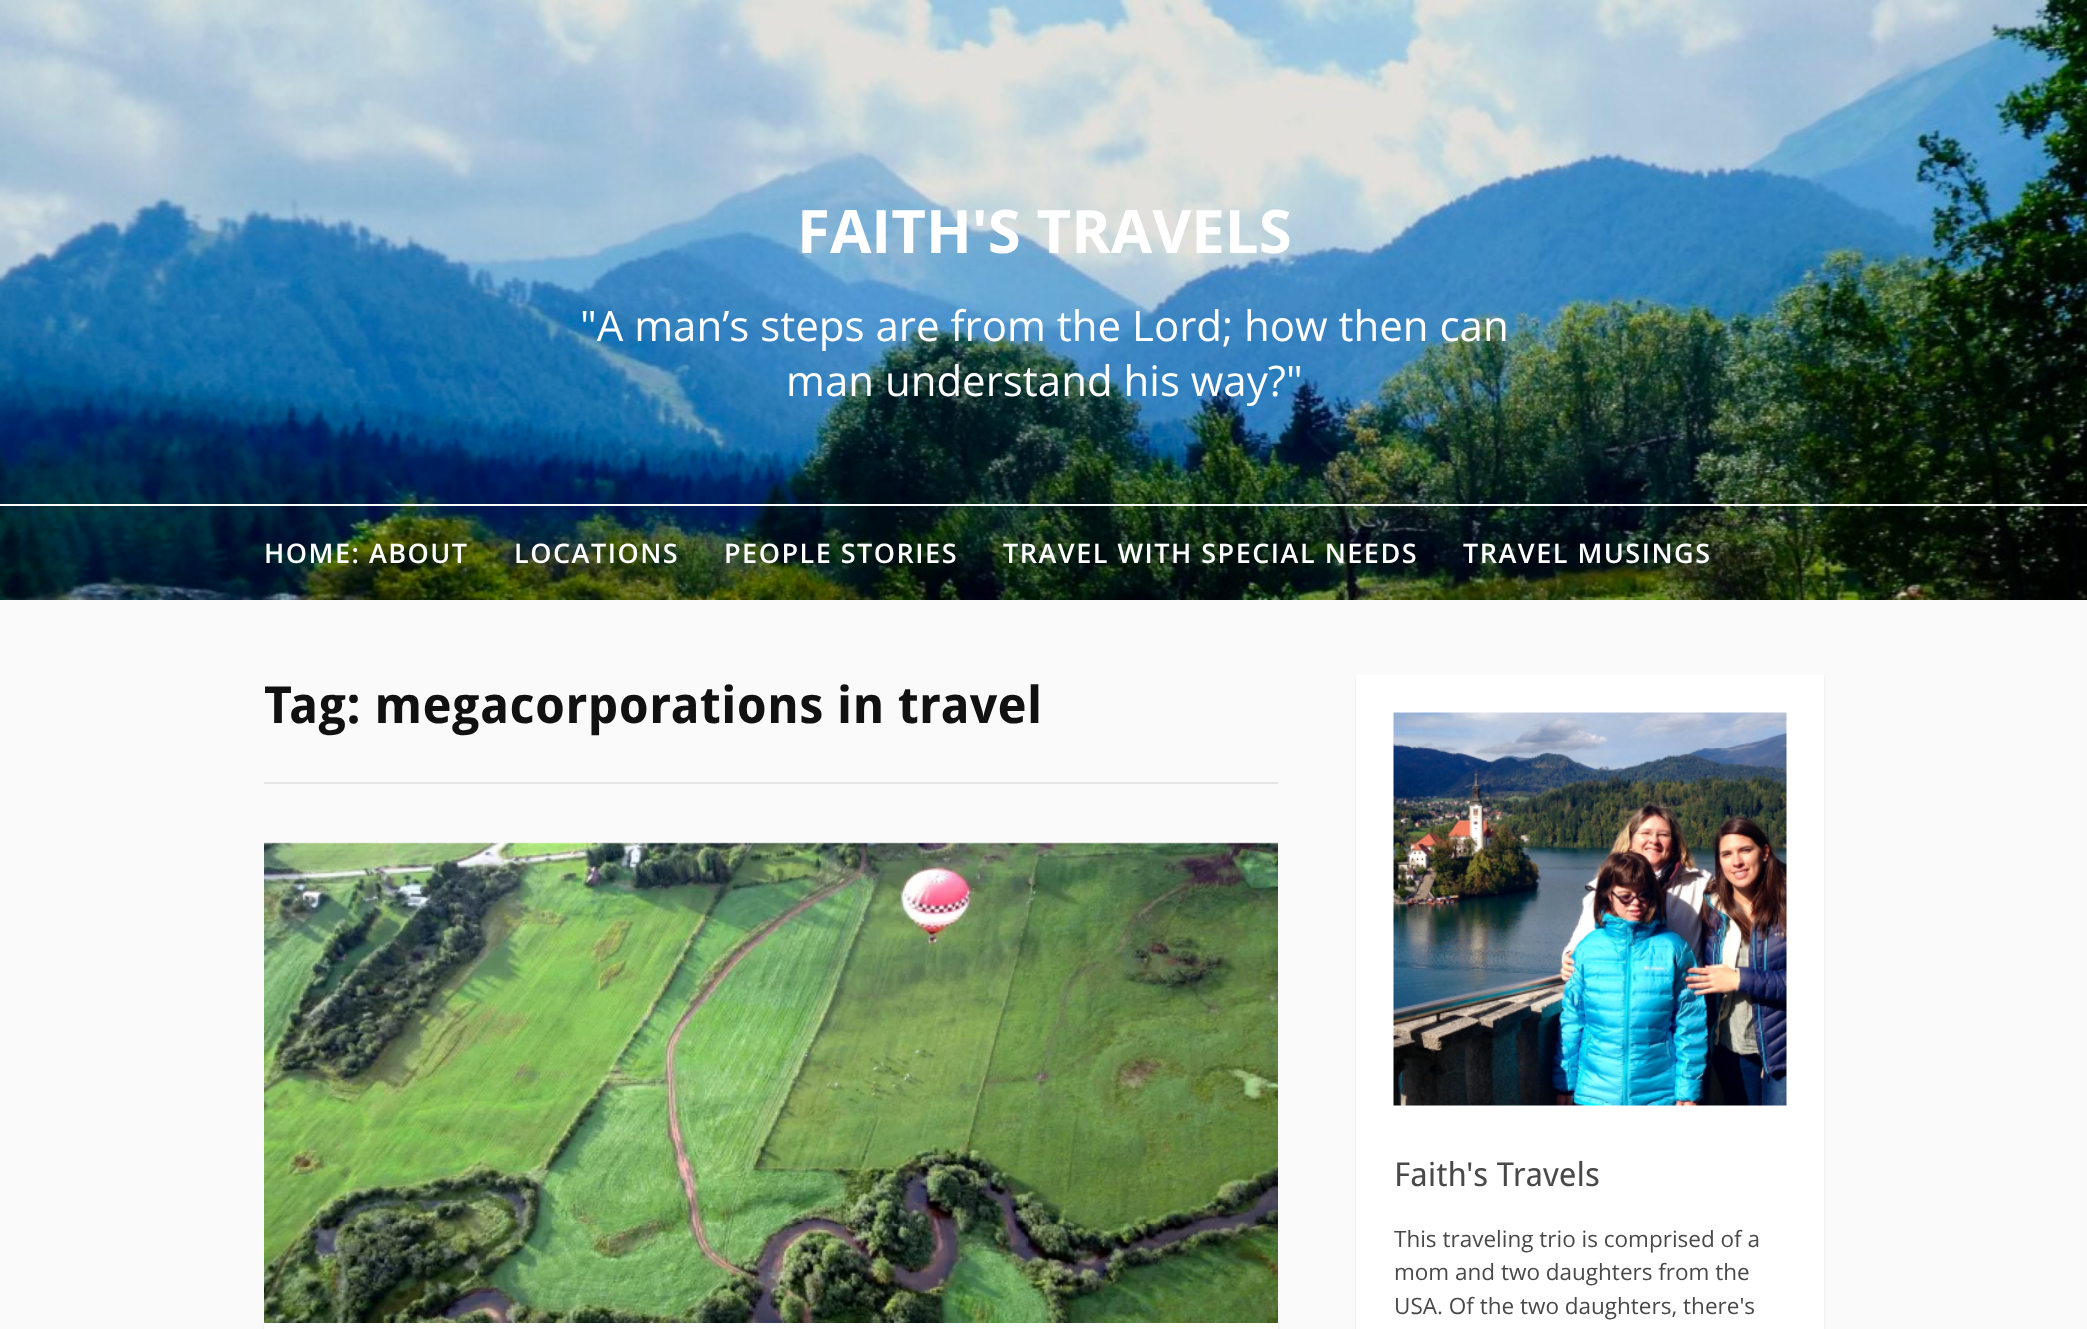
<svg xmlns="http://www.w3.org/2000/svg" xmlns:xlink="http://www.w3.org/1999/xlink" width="2087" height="1329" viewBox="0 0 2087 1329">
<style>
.cls-1{font:bold 60px Open Sans;fill:#ffffff}
.cls-2{font:42px Open Sans;fill:#ffffff}
.cls-3{font:600 27px Open Sans;letter-spacing:1.5px;fill:#ffffff}
.cls-4{font:bold 51px Droid Sans;fill:#111111}
.cls-5{font:33px Droid Sans;fill:#494949}
.cls-6{font:22.5px Open Sans;fill:#494949}
</style>
<rect width="100%" height="100%" fill="#fafafa"/>
<image xlink:href="image0.png" x="0" y="0" width="2087" height="600"/>
<rect fill="#ffffff" x="0" y="504" width="2087" height="2"/>
<rect fill="#e5e5e5" x="264" y="782" width="1014" height="2"/>
<image xlink:href="image1.png" x="264" y="842" width="1014" height="481"/>
<rect fill="#000000" fill-opacity="0.1" filter="blur(1.5px)" x="264" y="1325" width="1014" height="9"/>
<rect fill="#ffffff" x="264" y="1323" width="1014" height="6"/>
<rect fill="#000000" fill-opacity="0.1" filter="blur(1px)" x="1356" y="677" width="468" height="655"/>
<rect fill="#ffffff" x="1356" y="675" width="468" height="654"/>
<image xlink:href="image2.png" x="1393" y="712" width="394" height="394"/>
<text class="cls-1" x="797" y="253">FAITH'S TRAVELS</text>
<text class="cls-2" x="580" y="341">"A man’s steps are from the Lord; how then can</text>
<text class="cls-2" x="786" y="396">man understand his way?"</text>
<text class="cls-3" x="264" y="563">HOME: ABOUT</text>
<text class="cls-3" x="514" y="563">LOCATIONS</text>
<text class="cls-3" x="724" y="563">PEOPLE STORIES</text>
<text class="cls-3" x="1003" y="563">TRAVEL WITH SPECIAL NEEDS</text>
<text class="cls-3" x="1463" y="563">TRAVEL MUSINGS</text>
<text class="cls-4" x="264" y="723">Tag: megacorporations in travel</text>
<text class="cls-5" x="1394" y="1186">Faith's Travels</text>
<text class="cls-6"><tspan x="1394" y="1247">This traveling trio is comprised of a</tspan><tspan x="1394" y="1280">mom and two daughters from the</tspan><tspan x="1394" y="1314">USA. Of the two daughters, there's</tspan></text>
</svg>
